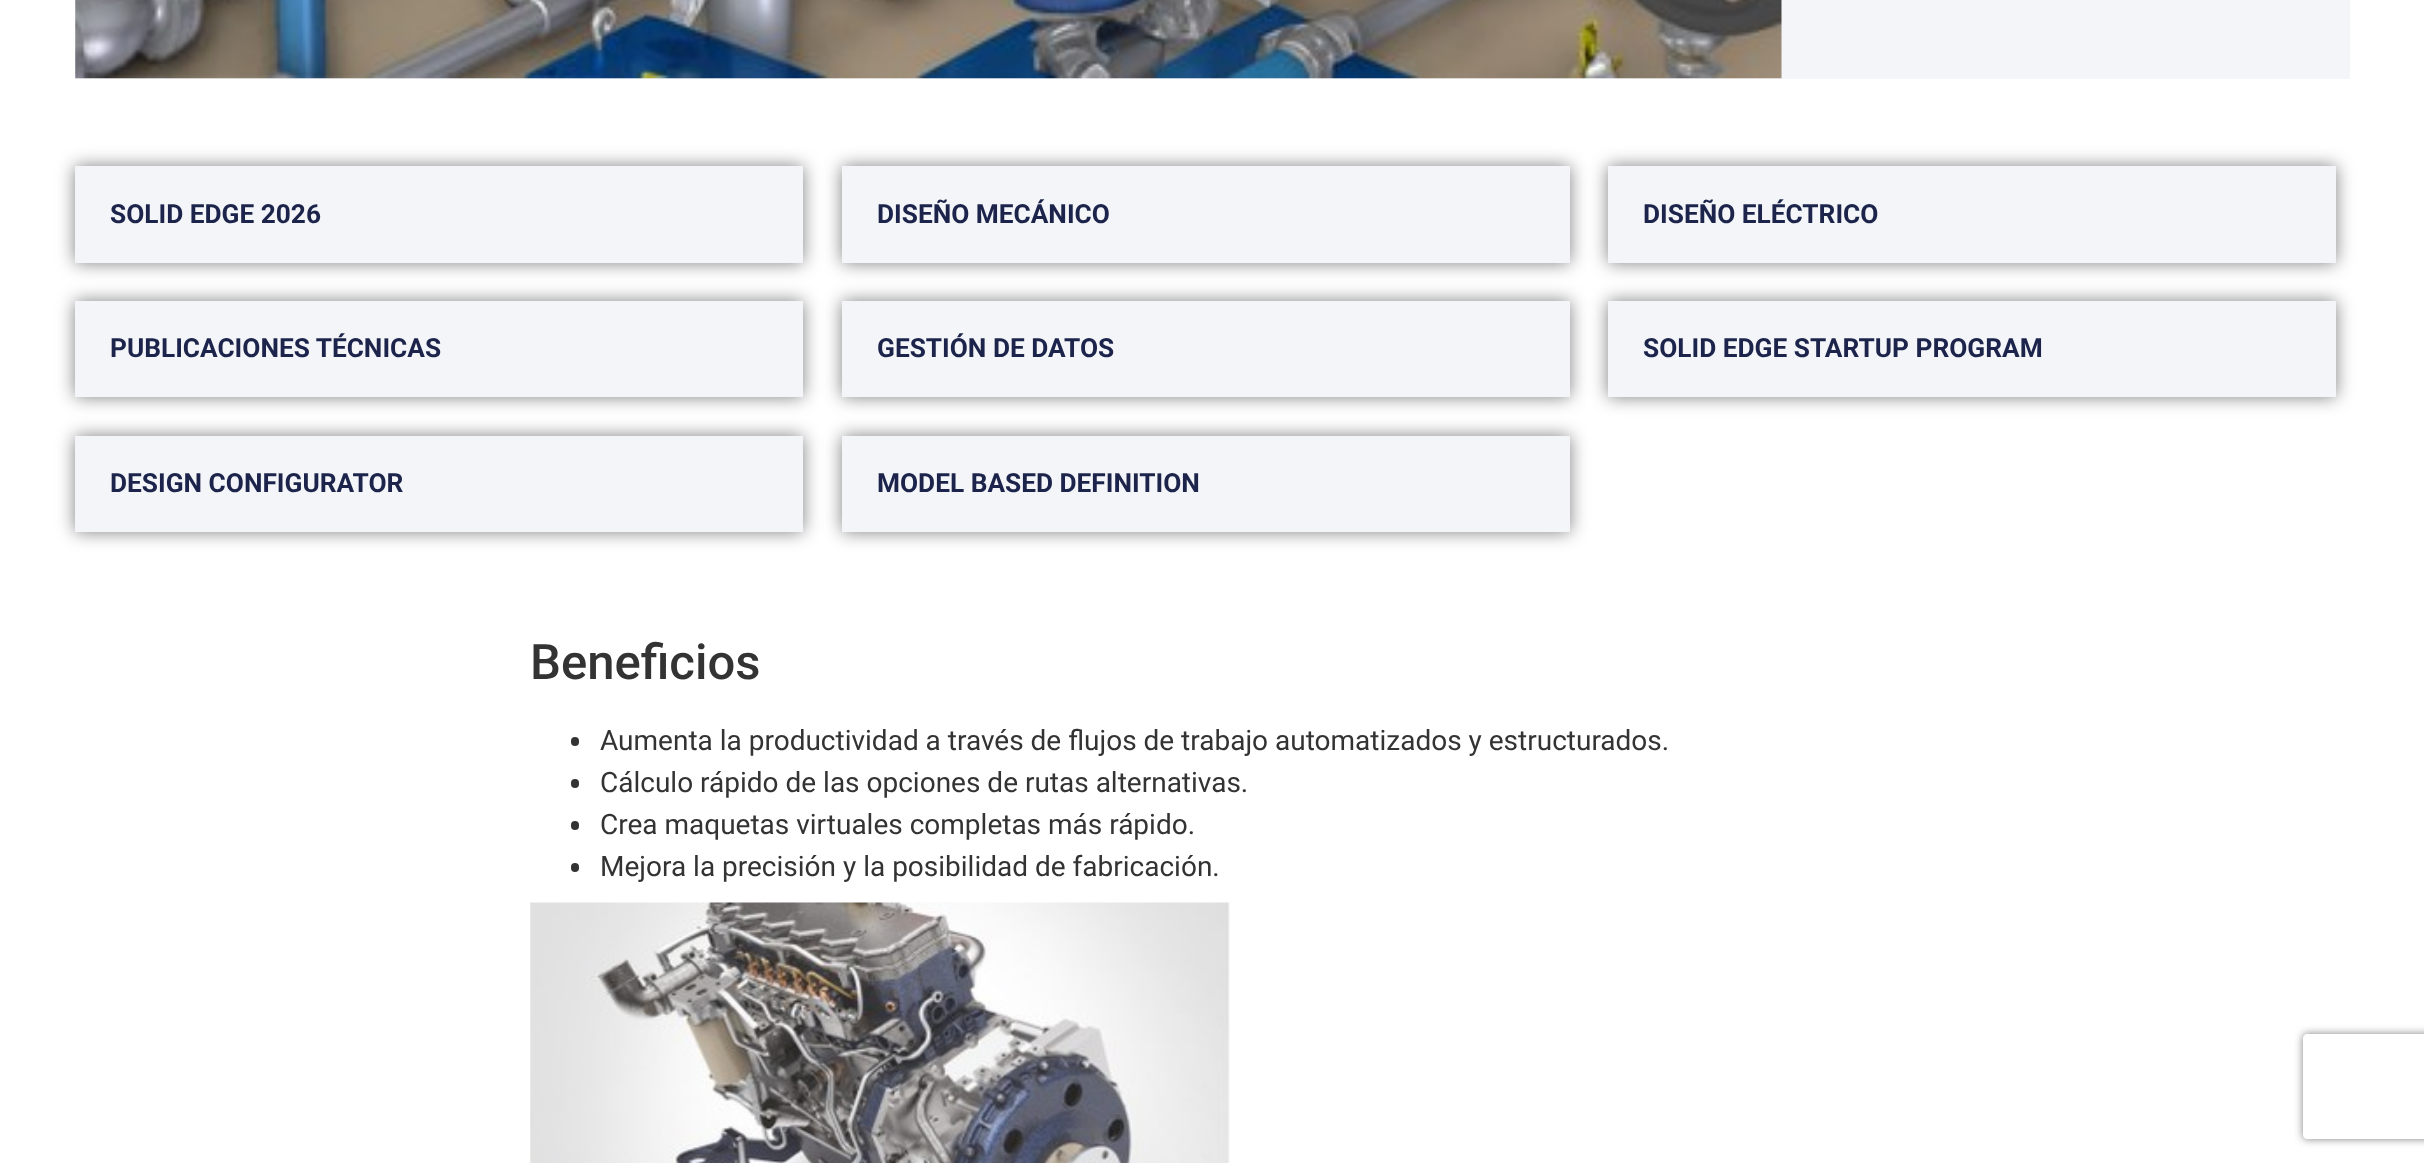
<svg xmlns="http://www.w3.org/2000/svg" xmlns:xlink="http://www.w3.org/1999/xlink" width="2424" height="1163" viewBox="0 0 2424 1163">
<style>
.cls-1{font:bold 26.25px Roboto;fill:#1c244b}
.cls-2{font:500 49px Roboto;fill:#333333}
.cls-3{font:28px Roboto;fill:#333333}
</style>
<defs>
<clipPath id="clip1"><path d="M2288 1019H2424V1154H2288ZM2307 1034H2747C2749 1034 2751 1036 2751 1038V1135C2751 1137 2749 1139 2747 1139H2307C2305 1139 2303 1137 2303 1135V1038C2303 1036 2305 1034 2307 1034Z" clip-rule="evenodd"/></clipPath>
</defs>
<rect width="100%" height="100%" fill="#ffffff"/>
<rect fill="#f3f5f8" x="75" y="0" width="2275" height="79"/>
<image xlink:href="image0.png" x="75" y="0" width="1707" height="79"/>
<rect fill="#000000" fill-opacity="0.5" filter="blur(9px)" x="75" y="166" width="728" height="97"/>
<rect fill="#f3f5f8" x="75" y="166" width="728" height="97"/>
<rect fill="#000000" fill-opacity="0.5" filter="blur(9px)" x="842" y="166" width="728" height="97"/>
<rect fill="#f3f5f8" x="842" y="166" width="728" height="97"/>
<rect fill="#000000" fill-opacity="0.5" filter="blur(9px)" x="1608" y="166" width="728" height="97"/>
<rect fill="#f3f5f8" x="1608" y="166" width="728" height="97"/>
<rect fill="#000000" fill-opacity="0.5" filter="blur(9px)" x="75" y="301" width="728" height="96"/>
<rect fill="#f3f5f8" x="75" y="301" width="728" height="96"/>
<rect fill="#000000" fill-opacity="0.5" filter="blur(9px)" x="842" y="301" width="728" height="96"/>
<rect fill="#f3f5f8" x="842" y="301" width="728" height="96"/>
<rect fill="#000000" fill-opacity="0.5" filter="blur(9px)" x="1608" y="301" width="728" height="96"/>
<rect fill="#f3f5f8" x="1608" y="301" width="728" height="96"/>
<rect fill="#000000" fill-opacity="0.5" filter="blur(9px)" x="75" y="436" width="728" height="96"/>
<rect fill="#f3f5f8" x="75" y="436" width="728" height="96"/>
<rect fill="#000000" fill-opacity="0.5" filter="blur(9px)" x="842" y="436" width="728" height="96"/>
<rect fill="#f3f5f8" x="842" y="436" width="728" height="96"/>
<rect fill="#333333" x="571" y="737" width="8" height="9" rx="4"/>
<rect fill="#333333" x="571" y="779" width="8" height="9" rx="4"/>
<rect fill="#333333" x="571" y="821" width="8" height="9" rx="4"/>
<rect fill="#333333" x="571" y="863" width="8" height="9" rx="4"/>
<image xlink:href="image1.png" x="530" y="902" width="700" height="261"/>
<g clip-path="url(#clip1)">
<rect fill="#808080" filter="blur(4.5px)" x="2303" y="1034" width="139" height="105" rx="4"/>
</g>
<text class="cls-1" x="110" y="223">SOLID EDGE 2026</text>
<text class="cls-1" x="877" y="223">DISEÑO MECÁNICO</text>
<text class="cls-1" x="1643" y="223">DISEÑO ELÉCTRICO</text>
<text class="cls-1" x="110" y="357">PUBLICACIONES TÉCNICAS</text>
<text class="cls-1" x="877" y="357">GESTIÓN DE DATOS</text>
<text class="cls-1" x="1643" y="357">SOLID EDGE STARTUP PROGRAM</text>
<text class="cls-1" x="110" y="492">DESIGN CONFIGURATOR</text>
<text class="cls-1" x="877" y="492">MODEL BASED DEFINITION</text>
<text class="cls-2" x="530" y="679">Beneficios</text>
<text class="cls-3"><tspan x="600" y="750">Aumenta la productividad a través de flujos de trabajo automatizados y estructurados.</tspan><tspan x="600" y="792">Cálculo rápido de las opciones de rutas alternativas.</tspan><tspan x="600" y="834">Crea maquetas virtuales completas más rápido.</tspan><tspan x="600" y="876">Mejora la precisión y la posibilidad de fabricación.</tspan></text>
</svg>
